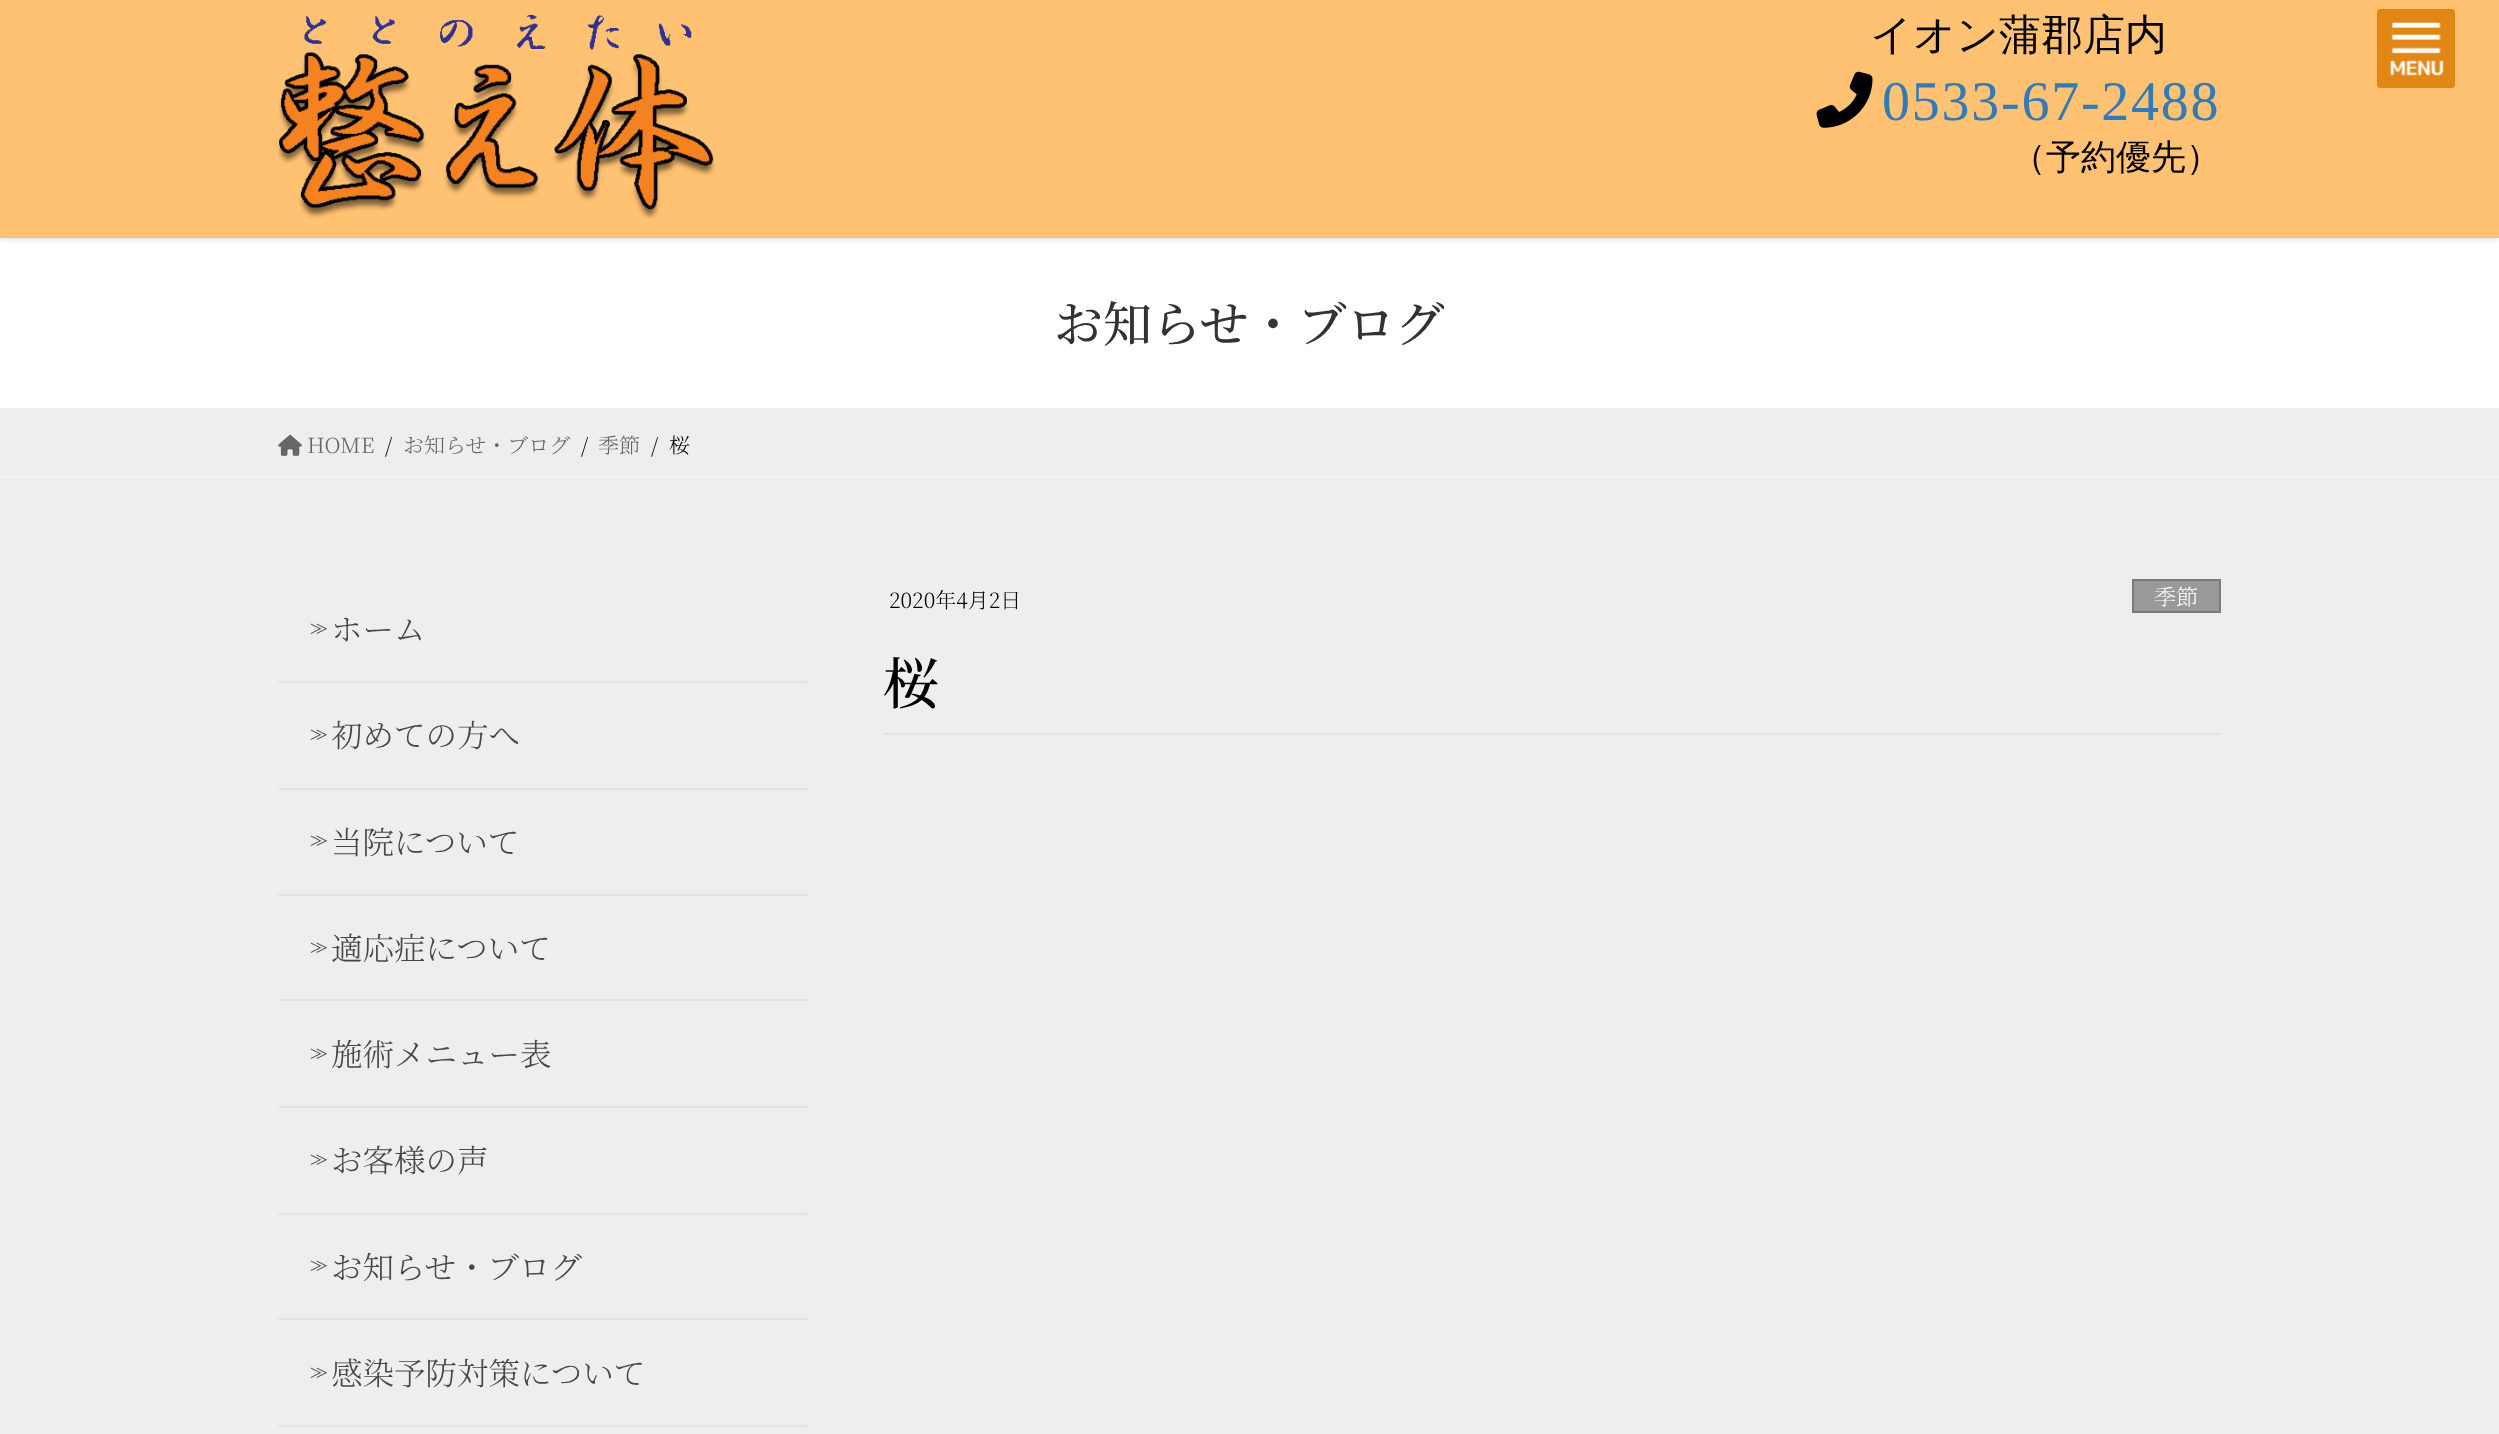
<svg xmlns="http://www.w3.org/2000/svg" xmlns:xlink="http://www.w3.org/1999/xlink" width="2499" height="1434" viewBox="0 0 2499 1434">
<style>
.cls-1{font:500 42px WenQuanYi Zen Hei;fill:#000000}
.cls-2{font:56px Liberation Serif;letter-spacing:1.75px;fill:#337ab7}
.cls-3{font:500 35px WenQuanYi Zen Hei;fill:#000000}
.cls-4{font:500 49px Noto Serif JP;fill:#333333}
.cls-5{font:300 21px Noto Serif JP;fill:#666666}
.cls-6{font:300 21px Noto Serif JP;fill:#000000}
.cls-7{font:500 18px WenQuanYi Zen Hei;fill:#464646}
.cls-8{font:300 31.5px Noto Serif JP;fill:#464646}
.cls-9{font:300 22px Noto Serif JP;fill:#ffffff}
.cls-10{font:500 56px Noto Serif JP;fill:#000000}
</style>
<rect width="100%" height="100%" fill="#eeeeee"/>
<rect fill="#ffffff" x="0" y="238" width="2499" height="170"/>
<rect fill="#000000" fill-opacity="0.1" filter="blur(2.5px)" x="0" y="2" width="2499" height="238"/>
<rect fill="#ffc172" x="0" y="0" width="2499" height="238"/>
<image xlink:href="image0.png" x="278" y="14" width="437" height="205"/>
<image xlink:href="image1.png" x="1816" y="71" width="57" height="57"/>
<rect fill="#e28615" x="2377" y="9" width="78" height="79" rx="4"/>
<image xlink:href="image2.png" x="2390" y="22" width="54" height="54"/>
<rect fill="none" stroke="#e28615" stroke-width="2" x="2378" y="10" width="76" height="77" rx="3"/>
<rect fill="#f3f3f3" x="0" y="476" width="2499" height="2"/>
<image xlink:href="image3.png" x="278" y="434" width="24" height="22"/>
<rect fill="#e2e2e2" x="278" y="681" width="529" height="2"/>
<rect fill="#e2e2e2" x="278" y="788" width="529" height="2"/>
<rect fill="#e2e2e2" x="278" y="894" width="529" height="2"/>
<rect fill="#e2e2e2" x="278" y="999" width="529" height="2"/>
<rect fill="#e2e2e2" x="278" y="1106" width="529" height="2"/>
<rect fill="#e2e2e2" x="278" y="1213" width="529" height="2"/>
<rect fill="#e2e2e2" x="278" y="1318" width="529" height="2"/>
<rect fill="#e2e2e2" x="278" y="1425" width="529" height="2"/>
<rect fill="#e2e2e2" x="884" y="733" width="1337" height="2"/>
<rect fill="#999999" stroke="#7a7a7a" stroke-width="2" x="2133" y="580" width="87" height="32"/>
<text class="cls-1" x="1870" y="49">イオン蒲郡店内</text>
<text class="cls-2" x="1882" y="120">0533-67-2488</text>
<text class="cls-3" x="2011" y="169">（予約優先）</text>
<text class="cls-4" x="1054" y="342">お知らせ・ブログ</text>
<text class="cls-5" x="307" y="453">HOME</text>
<text class="cls-6" x="385" y="453">/</text>
<text class="cls-5" x="403" y="453">お知らせ・ブログ</text>
<text class="cls-6" x="581" y="453">/</text>
<text class="cls-5" x="598" y="453">季節</text>
<text class="cls-6" x="651" y="453">/</text>
<text class="cls-6" x="669" y="453">桜</text>
<text class="cls-7" x="310" y="634">≫</text>
<text class="cls-8" x="331" y="641">ホーム</text>
<text class="cls-7" x="310" y="740">≫</text>
<text class="cls-8" x="331" y="747">初めての方へ</text>
<text class="cls-7" x="310" y="846">≫</text>
<text class="cls-8" x="331" y="854">当院について</text>
<text class="cls-7" x="310" y="953">≫</text>
<text class="cls-8" x="331" y="960">適応症について</text>
<text class="cls-7" x="310" y="1059">≫</text>
<text class="cls-8" x="331" y="1066">施術メニュー表</text>
<text class="cls-7" x="310" y="1165">≫</text>
<text class="cls-8" x="331" y="1172">お客様の声</text>
<text class="cls-7" x="310" y="1271">≫</text>
<text class="cls-8" x="331" y="1279">お知らせ・ブログ</text>
<text class="cls-7" x="310" y="1378">≫</text>
<text class="cls-8" x="331" y="1385">感染予防対策について</text>
<text class="cls-6" x="889" y="608">2020年4月2日</text>
<text class="cls-9" x="2154" y="605">季節</text>
<text class="cls-10" x="883" y="704">桜</text>
</svg>
